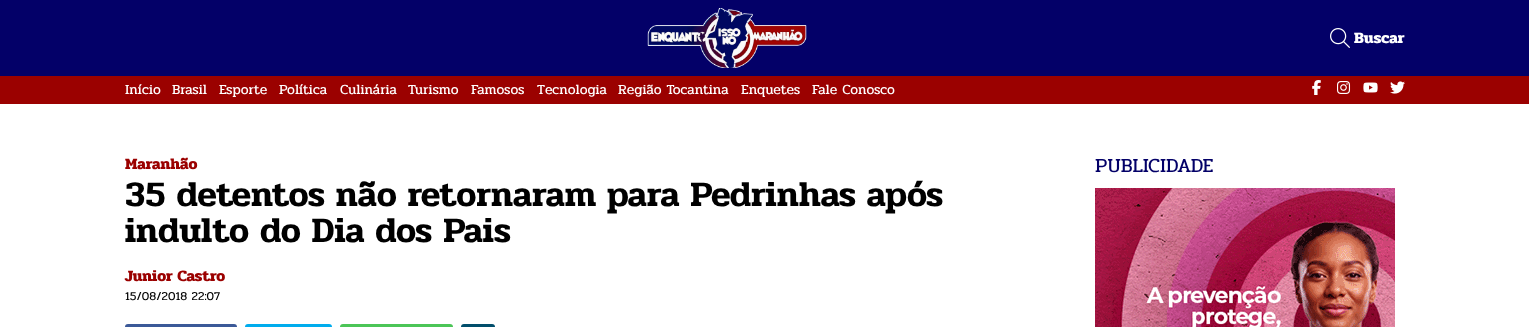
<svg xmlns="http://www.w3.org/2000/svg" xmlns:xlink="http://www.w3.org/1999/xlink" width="1529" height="327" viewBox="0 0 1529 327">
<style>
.cls-1{font:bold 16px Pridi;fill:#ffffff}
.cls-2{font:14px Pridi;fill:#ffffff}
.cls-3{font:bold 16px Pridi;fill:#9b0100}
.cls-4{font:600 36px Pridi;fill:#000000}
.cls-5{font:12px Pridi;fill:#000000}
.cls-6{font:20px Pridi;fill:#030068}
</style>
<rect width="100%" height="100%" fill="#ffffff"/>
<rect fill="#030068" x="0" y="0" width="1529" height="76"/>
<image xlink:href="image0.png" x="647" y="8" width="160" height="60"/>
<image xlink:href="image1.png" x="1330" y="28" width="20" height="20"/>
<rect fill="#9b0100" x="0" y="76" width="1529" height="28"/>
<image xlink:href="image2.png" x="1312" y="80" width="9" height="15"/>
<image xlink:href="image3.png" x="1337" y="81" width="14" height="13"/>
<image xlink:href="image4.png" x="1363" y="82" width="15" height="11"/>
<image xlink:href="image5.png" x="1390" y="81" width="15" height="13"/>
<rect fill="#3b5998" x="125" y="324" width="112" height="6" rx="3"/>
<rect fill="#00aced" x="245" y="324" width="87" height="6" rx="3"/>
<rect fill="#4bc557" x="340" y="324" width="113" height="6" rx="3"/>
<rect fill="#014e6b" x="461" y="324" width="34" height="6" rx="3"/>
<image xlink:href="image6.png" x="1095" y="188" width="300" height="139"/>
<text class="cls-1" x="1354" y="43">Buscar</text>
<text class="cls-2" x="125" y="94">Início</text>
<text class="cls-2" x="172" y="94">Brasil</text>
<text class="cls-2" x="219" y="94">Esporte</text>
<text class="cls-2" x="279" y="94">Política</text>
<text class="cls-2" x="340" y="94">Culinária</text>
<text class="cls-2" x="408" y="94">Turismo</text>
<text class="cls-2" x="471" y="94">Famosos</text>
<text class="cls-2" x="537" y="94">Tecnologia</text>
<text class="cls-2" x="618" y="94">Região Tocantina</text>
<text class="cls-2" x="741" y="94">Enquetes</text>
<text class="cls-2" x="812" y="94">Fale Conosco</text>
<text class="cls-3" x="125" y="169">Maranhão</text>
<text class="cls-4"><tspan x="125" y="206">35 detentos não retornaram para Pedrinhas após</tspan><tspan x="125" y="242">indulto do Dia dos Pais</tspan></text>
<text class="cls-3" x="125" y="281">Junior Castro</text>
<text class="cls-5" x="125" y="300">15/08/2018 22:07</text>
<text class="cls-6" x="1095" y="172">PUBLICIDADE</text>
</svg>
